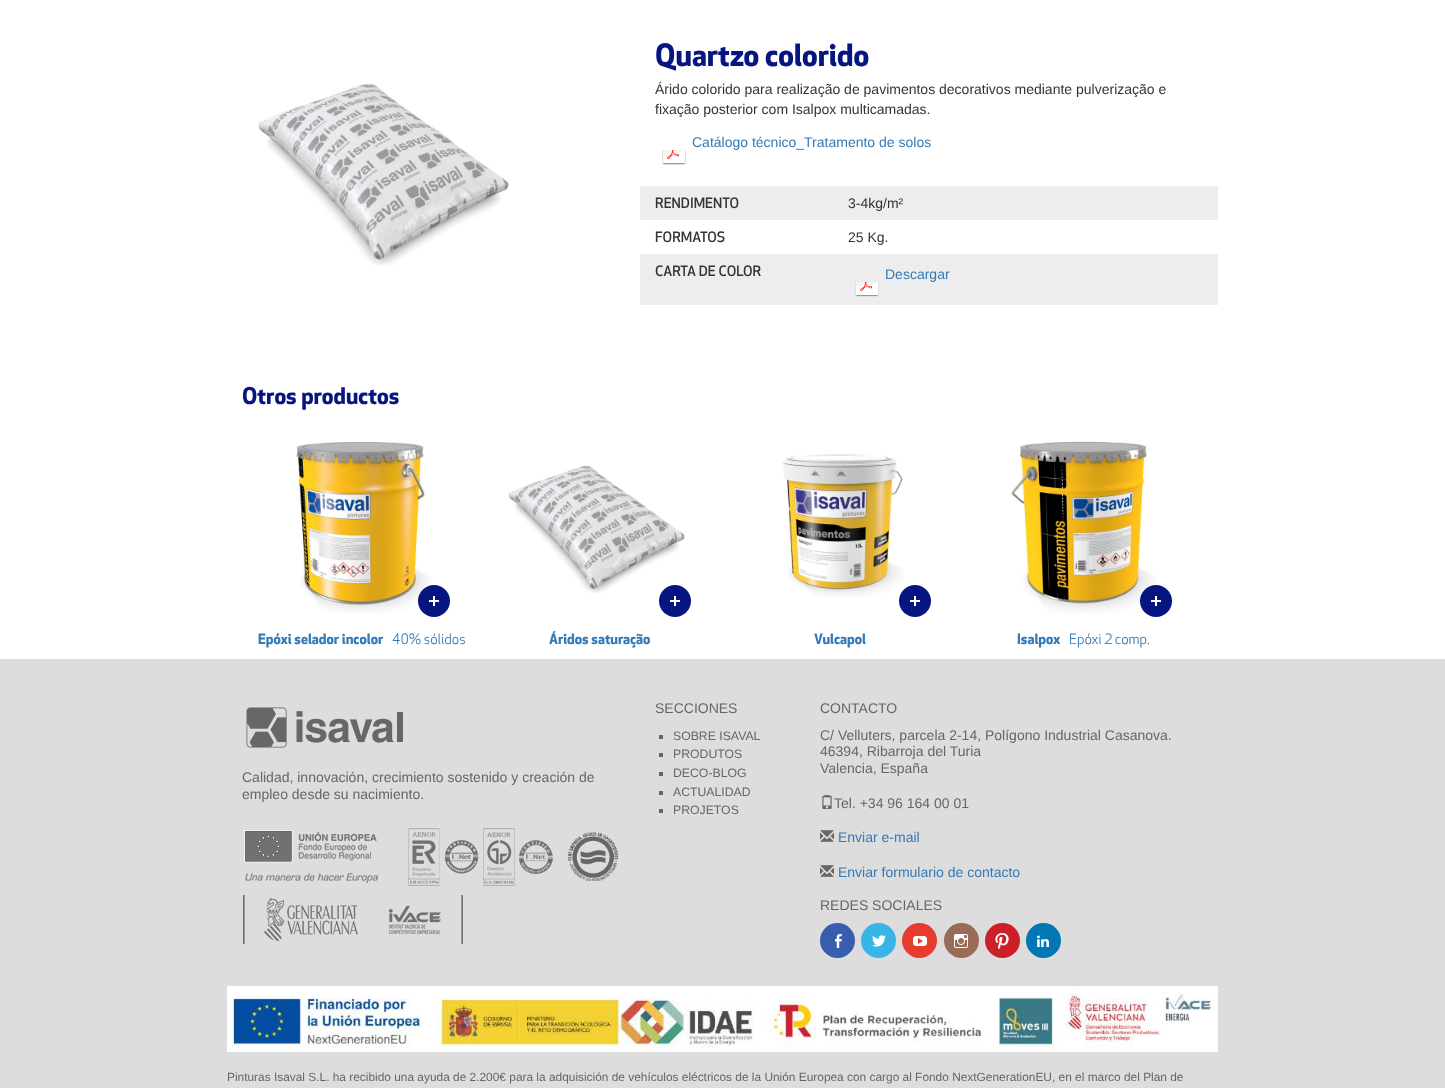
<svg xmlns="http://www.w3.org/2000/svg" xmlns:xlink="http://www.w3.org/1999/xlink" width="1445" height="1088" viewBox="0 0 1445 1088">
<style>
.cls-1{font:bold 30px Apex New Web;fill:#071580}
.cls-2{font:14px Liberation Sans;fill:#333333}
.cls-3{font:14px Liberation Sans;fill:#337ab7}
.cls-4{font:500 14px Apex New Web;fill:#333333}
.cls-5{font:bold 22.5px Apex New Web;fill:#071580}
.cls-6{font:bold 14px Apex New Web;fill:#337ab7}
.cls-7{font:14px Apex New Web;fill:#337ab7}
.cls-8{font:14px Liberation Sans;fill:#666666}
.cls-9{font:12.25px Liberation Sans;fill:#666666}
.cls-10{font:11.9px Liberation Sans;fill:#666666}
</style>
<rect width="100%" height="100%" fill="#ffffff"/>
<image xlink:href="image0.png" x="258" y="83" width="251" height="183"/>
<image xlink:href="image1.png" x="662" y="150" width="24" height="15"/>
<rect fill="#ededed" x="640" y="186" width="578" height="34"/>
<rect fill="#ededed" x="640" y="254" width="578" height="51"/>
<image xlink:href="image2.png" x="855" y="282" width="24" height="15"/>
<image xlink:href="image3.png" x="296" y="441" width="136" height="173"/>
<circle fill="#071580" cx="434" cy="601" r="16"/>
<image xlink:href="image4.png" x="429" y="596" width="10" height="10"/>
<image xlink:href="image5.png" x="508" y="465" width="177" height="128"/>
<circle fill="#071580" cx="675" cy="601" r="16"/>
<image xlink:href="image4.png" x="670" y="596" width="10" height="10"/>
<image xlink:href="image6.png" x="783" y="454" width="121" height="143"/>
<circle fill="#071580" cx="915" cy="601" r="16"/>
<image xlink:href="image4.png" x="910" y="596" width="10" height="10"/>
<image xlink:href="image7.png" x="1011" y="441" width="145" height="173"/>
<circle fill="#071580" cx="1156" cy="601" r="16"/>
<image xlink:href="image4.png" x="1151" y="596" width="10" height="10"/>
<rect fill="#dddddd" x="0" y="659" width="1445" height="429"/>
<image xlink:href="image8.png" x="246" y="707" width="157" height="41"/>
<image xlink:href="image9.png" x="244" y="830" width="134" height="53"/>
<image xlink:href="image10.png" x="408" y="828" width="145" height="58"/>
<image xlink:href="image11.png" x="568" y="832" width="50" height="49"/>
<image xlink:href="image12.png" x="243" y="895" width="220" height="49"/>
<rect fill="#666666" x="659" y="735" width="4" height="4"/>
<rect fill="#666666" x="659" y="753" width="4" height="4"/>
<rect fill="#666666" x="659" y="772" width="4" height="4"/>
<rect fill="#666666" x="659" y="791" width="4" height="4"/>
<rect fill="#666666" x="659" y="809" width="4" height="4"/>
<image xlink:href="image13.png" x="822" y="795" width="10" height="14"/>
<image xlink:href="image14.png" x="820" y="830" width="14" height="12"/>
<image xlink:href="image14.png" x="820" y="865" width="14" height="12"/>
<circle fill="#385dae" cx="837.5" cy="940.5" r="17.5"/>
<image xlink:href="image15.png" x="835" y="934" width="7" height="14"/>
<circle fill="#38b4e7" cx="878.5" cy="940.5" r="17.5"/>
<image xlink:href="image16.png" x="872" y="935" width="14" height="12"/>
<circle fill="#e63c2d" cx="919.5" cy="940.5" r="17.5"/>
<image xlink:href="image17.png" x="913" y="936" width="14" height="10"/>
<circle fill="#9a6b57" cx="961.5" cy="940.5" r="17.5"/>
<image xlink:href="image18.png" x="954" y="934" width="14" height="14"/>
<circle fill="#cb2027" cx="1002.5" cy="940.5" r="17.5"/>
<image xlink:href="image19.png" x="995" y="933" width="14" height="16"/>
<circle fill="#0177b5" cx="1043.5" cy="940.5" r="17.5"/>
<image xlink:href="image20.png" x="1037" y="935" width="12" height="12"/>
<image xlink:href="image21.png" x="227" y="986" width="991" height="66"/>
<text class="cls-1" x="655" y="66">Quartzo colorido</text>
<text class="cls-2"><tspan x="655" y="94">Árido colorido para realização de pavimentos decorativos mediante pulverização e</tspan><tspan x="655" y="114">fixação posterior com Isalpox multicamadas.</tspan></text>
<text class="cls-3" x="692" y="147">Catálogo técnico_Tratamento de solos</text>
<text class="cls-4" x="655" y="208">RENDIMENTO</text>
<text class="cls-2" x="848" y="208">3-4kg/m²</text>
<text class="cls-4" x="655" y="242">FORMATOS</text>
<text class="cls-2" x="848" y="242">25 Kg.</text>
<text class="cls-4" x="655" y="276">CARTA DE COLOR</text>
<text class="cls-3" x="885" y="279">Descargar</text>
<text class="cls-5" x="242" y="404">Otros productos</text>
<text class="cls-6" x="258" y="644">Epóxi selador incolor</text>
<text class="cls-7" x="392" y="644">40% sólidos</text>
<text class="cls-6" x="549" y="644">Áridos saturação</text>
<text class="cls-6" x="814" y="644">Vulcapol</text>
<text class="cls-6" x="1017" y="644">Isalpox</text>
<text class="cls-7" x="1069" y="644">Epóxi 2 comp.</text>
<text class="cls-8"><tspan x="242" y="782">Calidad, innovación, crecimiento sostenido y creación de</tspan><tspan x="242" y="799">empleo desde su nacimiento.</tspan></text>
<text class="cls-8" x="655" y="713">SECCIONES</text>
<text class="cls-9"><tspan x="673" y="740">SOBRE ISAVAL</tspan><tspan x="673" y="758">PRODUTOS</tspan><tspan x="673" y="777">DECO-BLOG</tspan><tspan x="673" y="796">ACTUALIDAD</tspan><tspan x="673" y="814">PROJETOS</tspan></text>
<text class="cls-8"><tspan x="820" y="713">CONTACTO</tspan><tspan x="820" y="740">C/ Velluters, parcela 2-14, Polígono Industrial Casanova.</tspan><tspan x="820" y="756">46394, Ribarroja del Turia</tspan><tspan x="820" y="773">Valencia, España</tspan></text>
<text class="cls-8" x="834" y="808">Tel. +34 96 164 00 01</text>
<text class="cls-3" x="838" y="842">Enviar e-mail</text>
<text class="cls-3" x="838" y="877">Enviar formulario de contacto</text>
<text class="cls-8" x="820" y="910">REDES SOCIALES</text>
<text class="cls-10" x="227" y="1081">Pinturas Isaval S.L. ha recibido una ayuda de 2.200€ para la adquisición de vehículos eléctricos de la Unión Europea con cargo al Fondo NextGenerationEU, en el marco del Plan de</text>
</svg>
